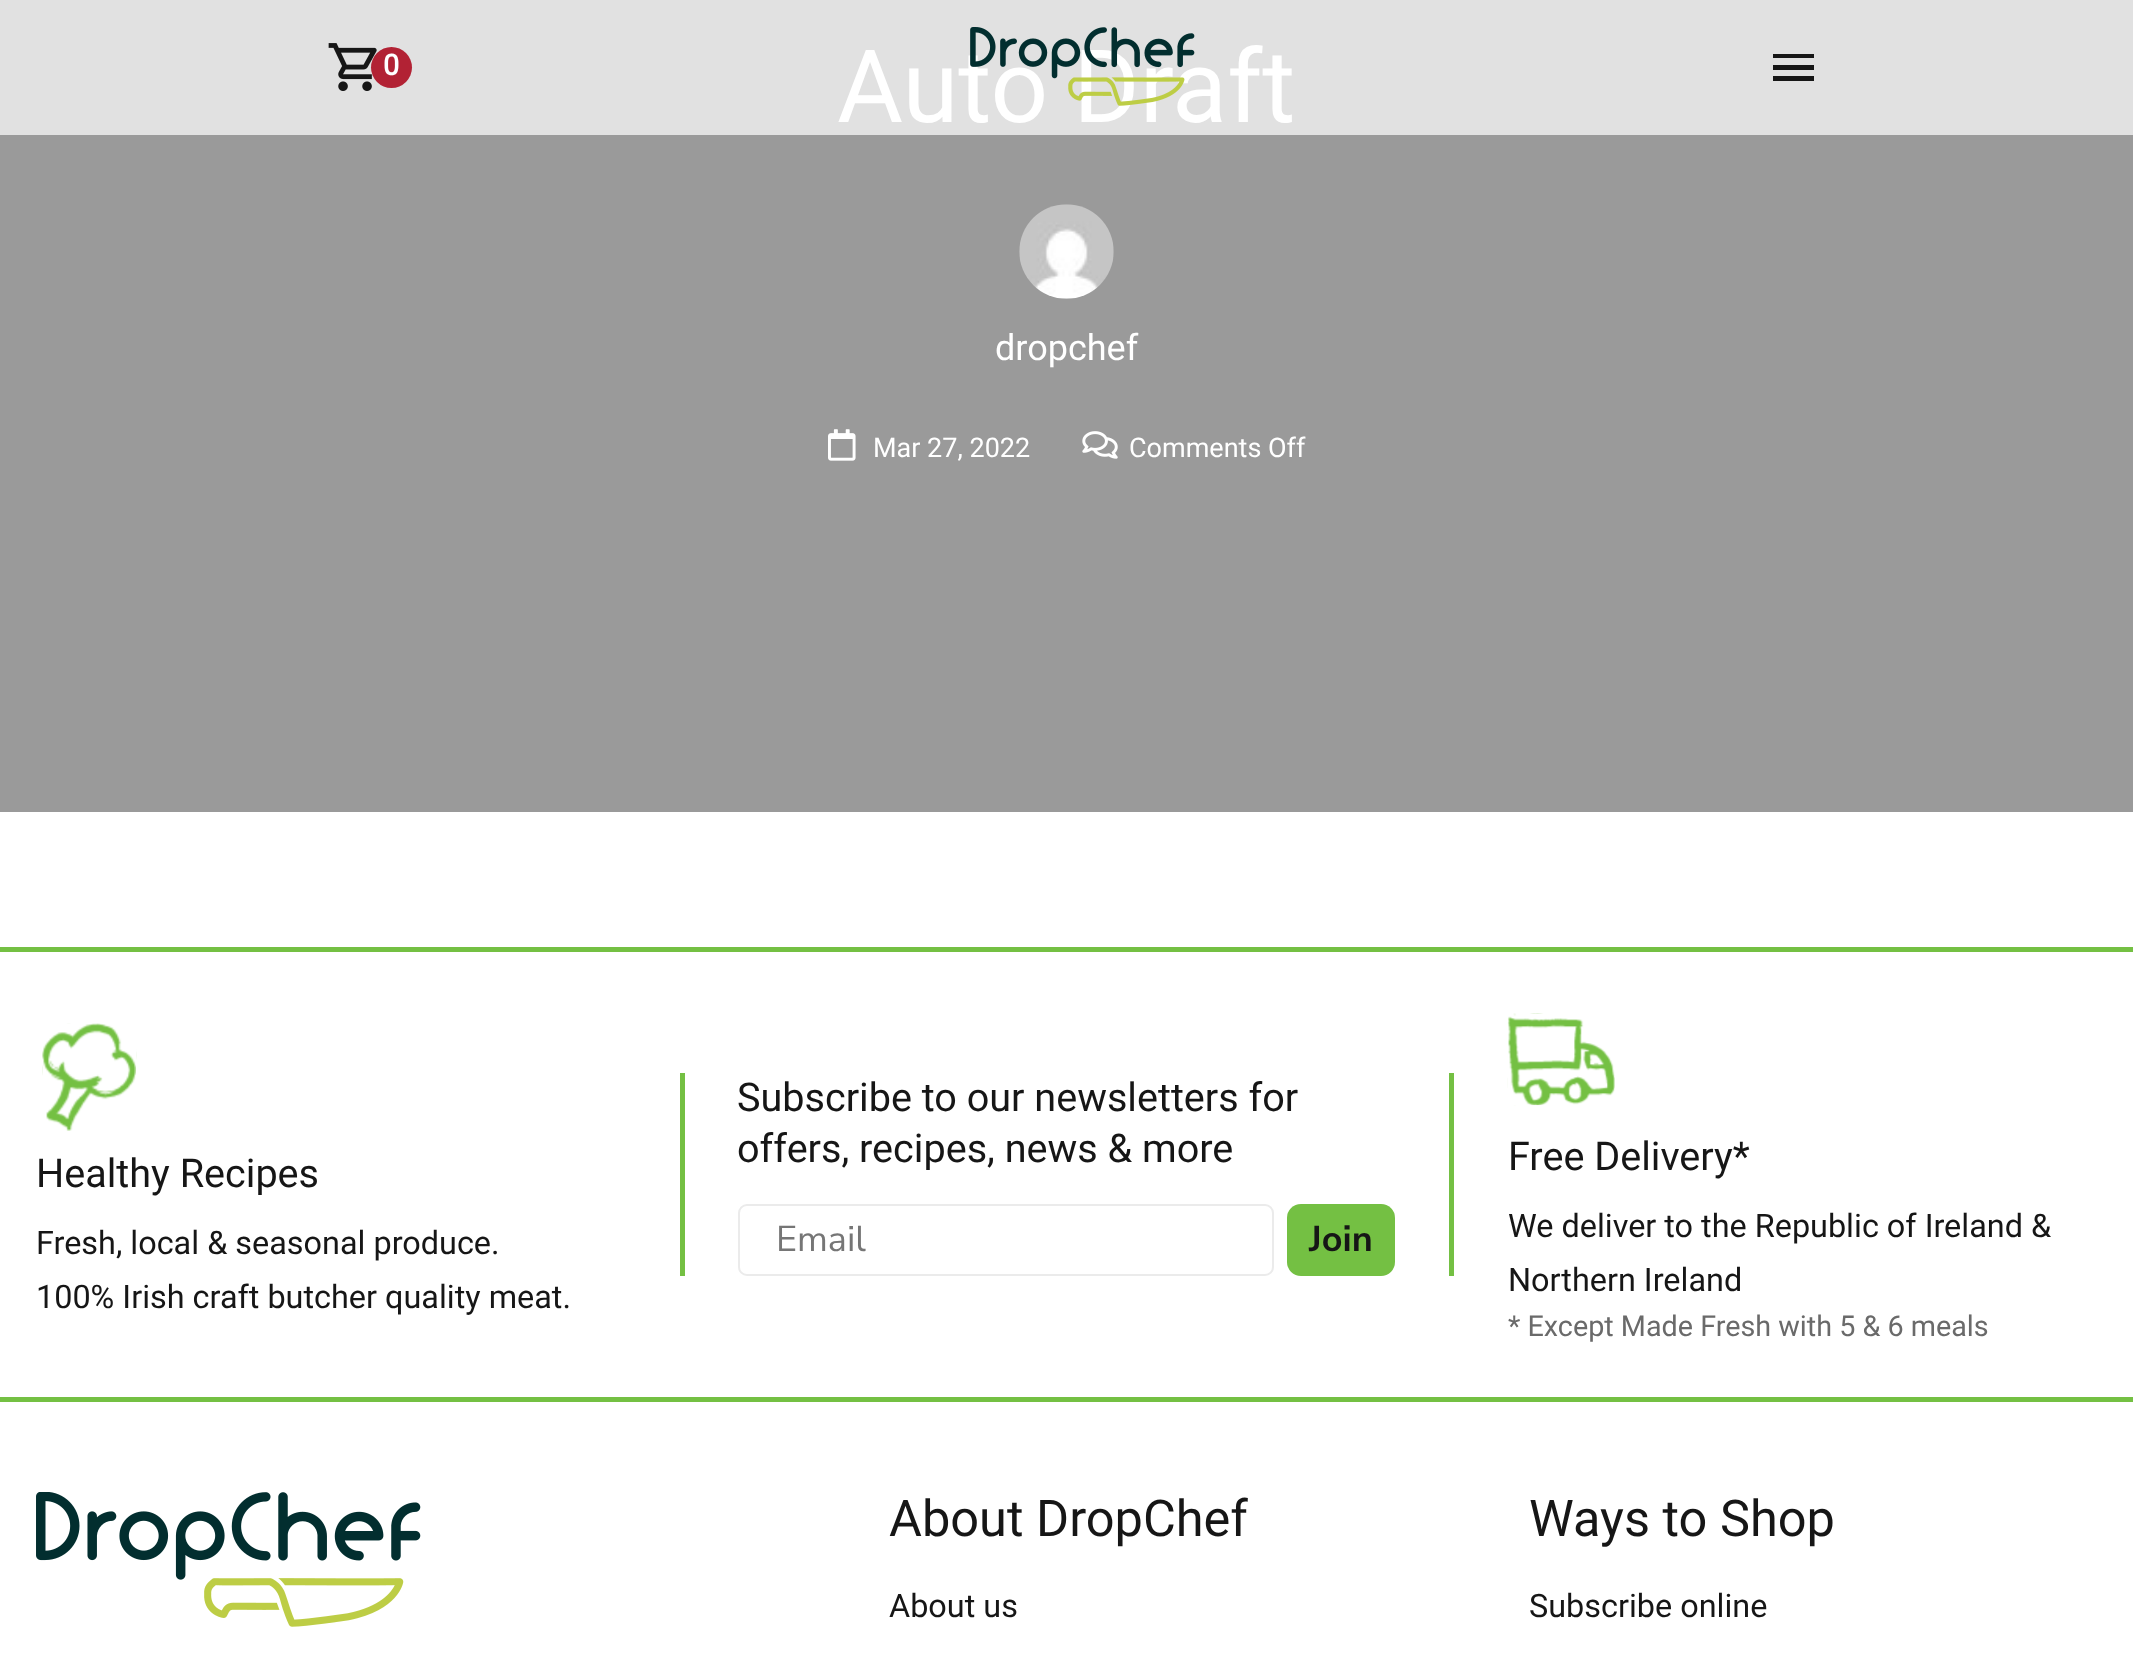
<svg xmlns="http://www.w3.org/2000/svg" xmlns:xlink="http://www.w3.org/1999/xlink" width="2133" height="1670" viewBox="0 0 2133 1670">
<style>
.cls-1{font:bold 28.75px Roboto;fill:#ffffff}
.cls-2{font:101.25px Roboto;fill:#ffffff}
.cls-3{font:36px Roboto;fill:#ffffff}
.cls-4{font:27px Roboto;fill:#ffffff}
.cls-5{font:39.6px Roboto;fill:#161616}
.cls-6{font:32.4px Roboto;fill:#161616}
.cls-7{font:36px Nunito Sans;fill:#767676}
.cls-8{font:bold 36px Nunito Sans;fill:#161616}
.cls-9{font:28.75px Roboto;fill:#6a6a6a}
.cls-10{font:50.5px Roboto;fill:#161616}
</style>
<rect width="100%" height="100%" fill="#ffffff"/>
<rect fill="#e1e1e1" x="0" y="0" width="2133" height="135"/>
<image xlink:href="image0.png" x="328" y="43" width="49" height="48"/>
<circle fill="#b22234" cx="391.5" cy="67.5" r="20.5"/>
<path fill="#161616" fill-rule="evenodd" d="M1773 58V54H1814V58ZM1773 70H1814V65H1773ZM1773 81H1814V76H1773Z"/>
<rect fill="#9a9a9a" x="0" y="135" width="2133" height="677"/>
<image xlink:href="image2.png" x="1019" y="204" width="95" height="95"/>
<image xlink:href="image3.png" x="828" y="429" width="28" height="32"/>
<image xlink:href="image4.png" x="1082" y="431" width="36" height="28"/>
<rect fill="#74c043" x="0" y="947" width="2133" height="5"/>
<image xlink:href="image5.png" x="42" y="1023" width="95" height="108"/>
<rect fill="#74c043" x="1449" y="1073" width="5" height="203"/>
<rect fill="#74c043" x="680" y="1073" width="5" height="203"/>
<rect fill="none" stroke="#ebebeb" stroke-width="2" x="739" y="1205" width="534" height="70" rx="8"/>
<rect fill="#74c043" x="1287" y="1204" width="108" height="72" rx="14"/>
<image xlink:href="image6.png" x="1507" y="1013" width="108" height="93"/>
<rect fill="#74c043" x="0" y="1397" width="2133" height="5"/>
<image xlink:href="image7.png" x="36" y="1492" width="385" height="135"/>
<text class="cls-1" x="383" y="75">0</text>
<text class="cls-2" x="837" y="122">Auto Draft</text>
<image xlink:href="image1.png" x="970" y="27" width="225" height="79"/>
<text class="cls-3" x="995" y="360">dropchef</text>
<text class="cls-4" x="873" y="457">Mar 27, 2022</text>
<text class="cls-4" x="1129" y="457">Comments Off</text>
<text class="cls-5" x="36" y="1187">Healthy Recipes</text>
<text class="cls-6"><tspan x="36" y="1254">Fresh, local &amp; seasonal produce.</tspan><tspan x="36" y="1308">100% Irish craft butcher quality meat.</tspan></text>
<text class="cls-5"><tspan x="737" y="1111">Subscribe to our newsletters for</tspan><tspan x="737" y="1162">offers, recipes, news &amp; more</tspan></text>
<text class="cls-7" x="776" y="1251">Email</text>
<text class="cls-8" x="1309" y="1251">Join</text>
<text class="cls-5" x="1508" y="1170">Free Delivery*</text>
<text class="cls-6"><tspan x="1508" y="1237">We deliver to the Republic of Ireland &amp;</tspan><tspan x="1508" y="1291">Northern Ireland</tspan></text>
<text class="cls-9" x="1508" y="1336">* Except Made Fresh with 5 &amp; 6 meals</text>
<text class="cls-10" x="889" y="1536">About DropChef</text>
<text class="cls-6" x="889" y="1617">About us</text>
<text class="cls-10" x="1529" y="1536">Ways to Shop</text>
<text class="cls-6" x="1529" y="1617">Subscribe online</text>
</svg>
